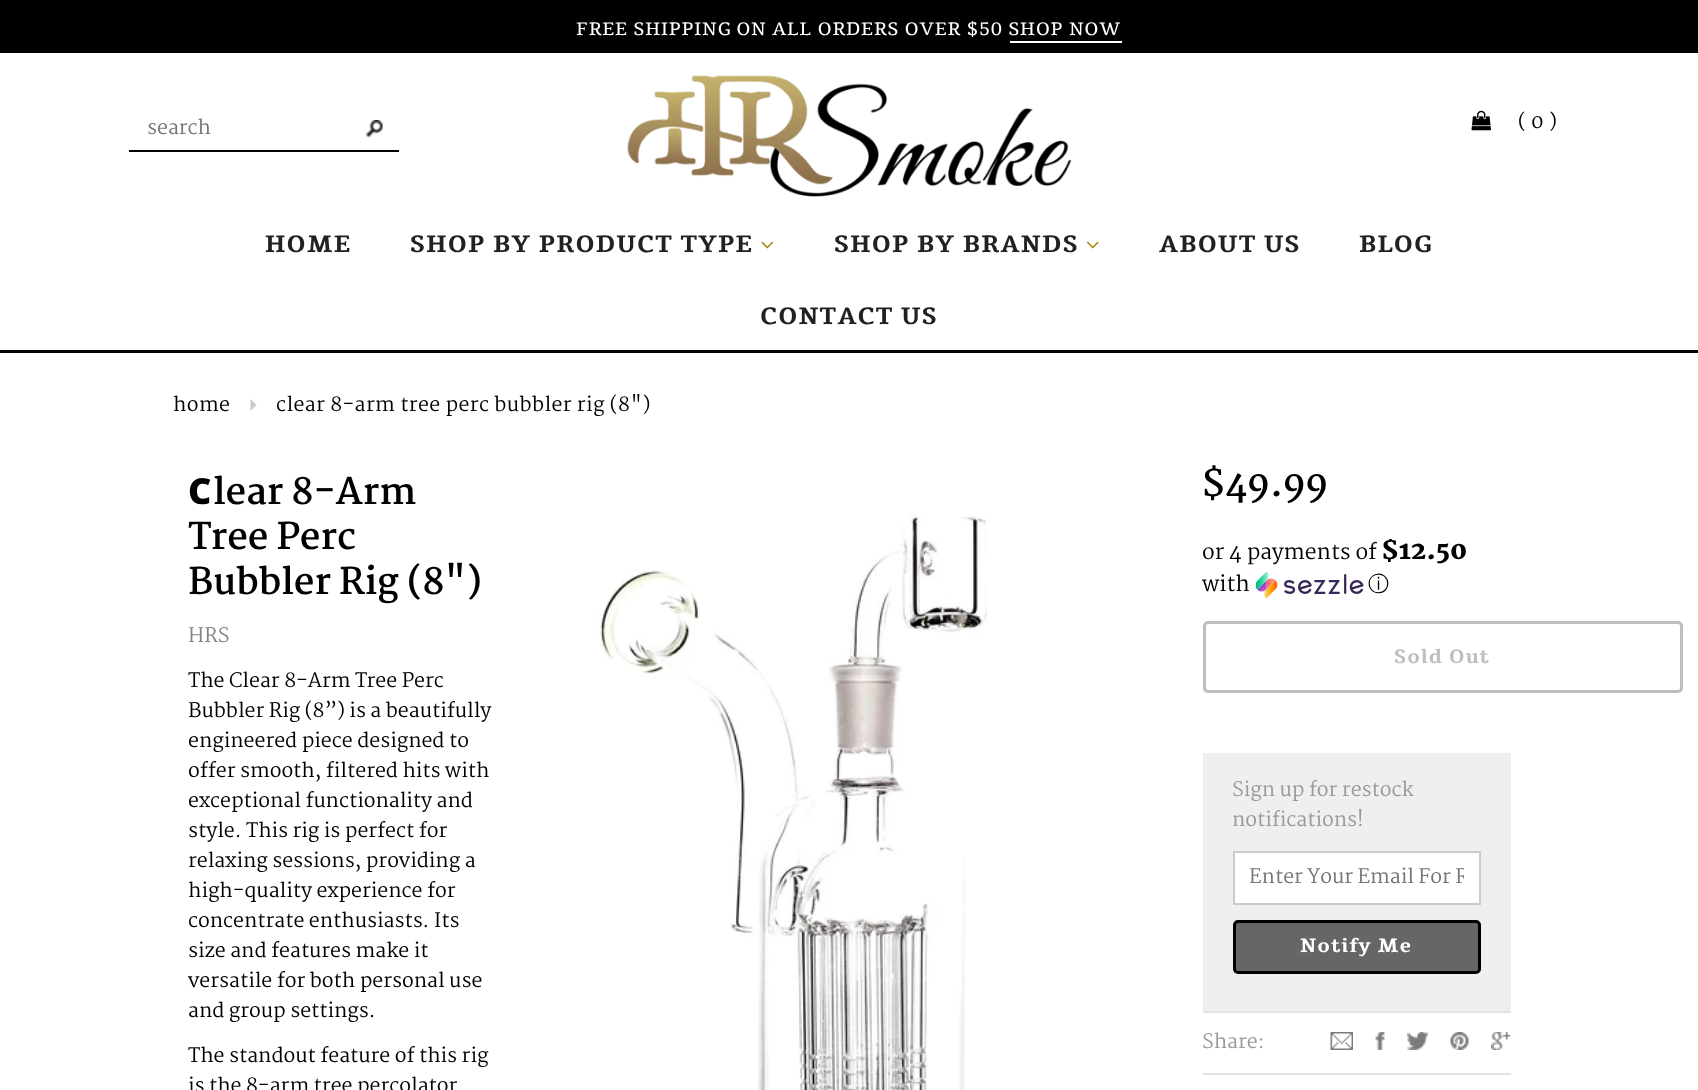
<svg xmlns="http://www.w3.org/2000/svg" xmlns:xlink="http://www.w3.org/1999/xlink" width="1698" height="1090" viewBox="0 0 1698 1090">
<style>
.cls-1{font:18px Tienne;letter-spacing:0.9px;fill:#ffffff}
.cls-2{font:19.5px Martel;fill:#757575}
.cls-3{font:19.5px Martel;letter-spacing:0.4px;fill:#000000}
.cls-4{font:bold 24px Tienne;letter-spacing:1.2px;fill:#212121}
.cls-5{font:900 36px Noto Sans;fill:#000000}
.cls-6{font:bold 36px Martel;fill:#000000}
.cls-7{font:19.5px Martel;fill:#848484}
.cls-8{font:19.5px Martel;fill:#000000}
.cls-9{font:21px Martel;fill:#000000}
.cls-10{font:900 25px Martel;fill:#000000}
.cls-11{font:500 21px WenQuanYi Zen Hei;fill:#000000}
.cls-12{font:bold 19.5px Tienne;letter-spacing:1px;fill:#bebebe}
.cls-13{font:19.5px Martel;fill:#999999}
.cls-14{font:bold 19.5px Tienne;letter-spacing:1px;fill:#ffffff}
</style>
<defs>
<clipPath id="clip1"><rect x="1203" y="539" width="308" height="64"/></clipPath>
<clipPath id="clip2"><rect x="1250" y="861" width="214" height="33"/></clipPath>
</defs>
<rect width="100%" height="100%" fill="#ffffff"/>
<rect fill="#000000" x="0" y="350" width="1698" height="3"/>
<rect fill="#000000" x="0" y="0" width="1698" height="53"/>
<rect fill="#ffffff" x="1010" y="41" width="112" height="2"/>
<image xlink:href="image0.png" x="627" y="75" width="445" height="122"/>
<rect fill="#000000" x="129" y="150" width="270" height="2"/>
<image xlink:href="image1.png" x="366" y="120" width="17" height="18"/>
<image xlink:href="image2.png" x="1471" y="110" width="20" height="21"/>
<image xlink:href="image3.png" x="761" y="241" width="13" height="8"/>
<image xlink:href="image4.png" x="1086" y="241" width="13" height="8"/>
<path fill="#cbcbcb" d="M250.5 411V399L256.5 405Z"/>
<image xlink:href="image5.png" x="598" y="515" width="389" height="575"/>
<image xlink:href="image6.png" x="1256" y="572" width="108" height="27"/>
<rect fill="none" stroke="#bebebe" stroke-width="3" x="1204.5" y="622.5" width="477" height="69" rx="3.5"/>
<rect fill="#efefef" x="1203" y="753" width="308" height="258"/>
<rect fill="#ffffff" stroke="#cbcbcb" stroke-width="2" x="1234" y="852" width="246" height="52"/>
<rect fill="#666666" stroke="#000000" stroke-width="3" x="1234.5" y="921.5" width="245" height="51" rx="3.5"/>
<rect fill="#e3e3e3" x="1203" y="1011" width="308" height="2"/>
<rect fill="#e3e3e3" x="1203" y="1073" width="308" height="2"/>
<image xlink:href="image7.png" x="1330" y="1032" width="23" height="18"/>
<image xlink:href="image8.png" x="1375" y="1032" width="10" height="18"/>
<image xlink:href="image9.png" x="1407" y="1032" width="21" height="18"/>
<image xlink:href="image10.png" x="1450" y="1032" width="19" height="18"/>
<image xlink:href="image11.png" x="1491" y="1032" width="20" height="18"/>
<text class="cls-1" x="576" y="35">FREE SHIPPING ON ALL ORDERS OVER $50 SHOP NOW</text>
<text class="cls-2" x="147" y="134">search</text>
<text class="cls-3" x="1518" y="128">( 0 )</text>
<text class="cls-4" x="265" y="252">HOME</text>
<text class="cls-4" x="410" y="252">SHOP BY PRODUCT TYPE</text>
<text class="cls-4" x="834" y="252">SHOP BY BRANDS</text>
<text class="cls-4" x="1159" y="252">ABOUT US</text>
<text class="cls-4" x="1359" y="252">BLOG</text>
<text class="cls-4" x="760" y="324">CONTACT US</text>
<text class="cls-3" x="173" y="411">home</text>
<text class="cls-3" x="276" y="411">clear 8-arm tree perc bubbler rig (8")</text>
<text class="cls-5" x="188" y="504">C</text>
<text class="cls-6" x="213" y="504">lear 8-Arm</text>
<text class="cls-6"><tspan x="188" y="549">Tree Perc</tspan><tspan x="188" y="594">Bubbler Rig (8")</tspan></text>
<text class="cls-7" x="188" y="642">HRS</text>
<text class="cls-8"><tspan x="188" y="687">The Clear 8-Arm Tree Perc</tspan><tspan x="188" y="717">Bubbler Rig (8”) is a beautifully</tspan><tspan x="188" y="747">engineered piece designed to</tspan><tspan x="188" y="777">offer smooth, filtered hits with</tspan><tspan x="188" y="807">exceptional functionality and</tspan><tspan x="188" y="837">style. This rig is perfect for</tspan><tspan x="188" y="867">relaxing sessions, providing a</tspan><tspan x="188" y="897">high-quality experience for</tspan><tspan x="188" y="927">concentrate enthusiasts. Its</tspan><tspan x="188" y="957">size and features make it</tspan><tspan x="188" y="987">versatile for both personal use</tspan><tspan x="188" y="1017">and group settings.</tspan></text>
<text class="cls-8"><tspan x="188" y="1062">The standout feature of this rig</tspan><tspan x="188" y="1092">is the 8-arm tree percolator</tspan></text>
<text class="cls-6" x="1202" y="496">$49.99</text>
<text class="cls-9" x="1202" y="559">or 4 payments of</text>
<g clip-path="url(#clip1)">
<text class="cls-10" x="1382" y="559">$12.50</text>
</g>
<text class="cls-9" x="1202" y="591">with</text>
<text class="cls-11" x="1368" y="591">ⓘ</text>
<text class="cls-12" x="1394" y="663">Sold Out</text>
<text class="cls-13"><tspan x="1232" y="796">Sign up for restock</tspan><tspan x="1232" y="826">notifications!</tspan></text>
<g clip-path="url(#clip2)">
<text class="cls-2" x="1249" y="883">Enter Your Email For R</text>
</g>
<text class="cls-14" x="1300" y="952">Notify Me</text>
<text class="cls-13" x="1202" y="1048">Share:</text>
</svg>
